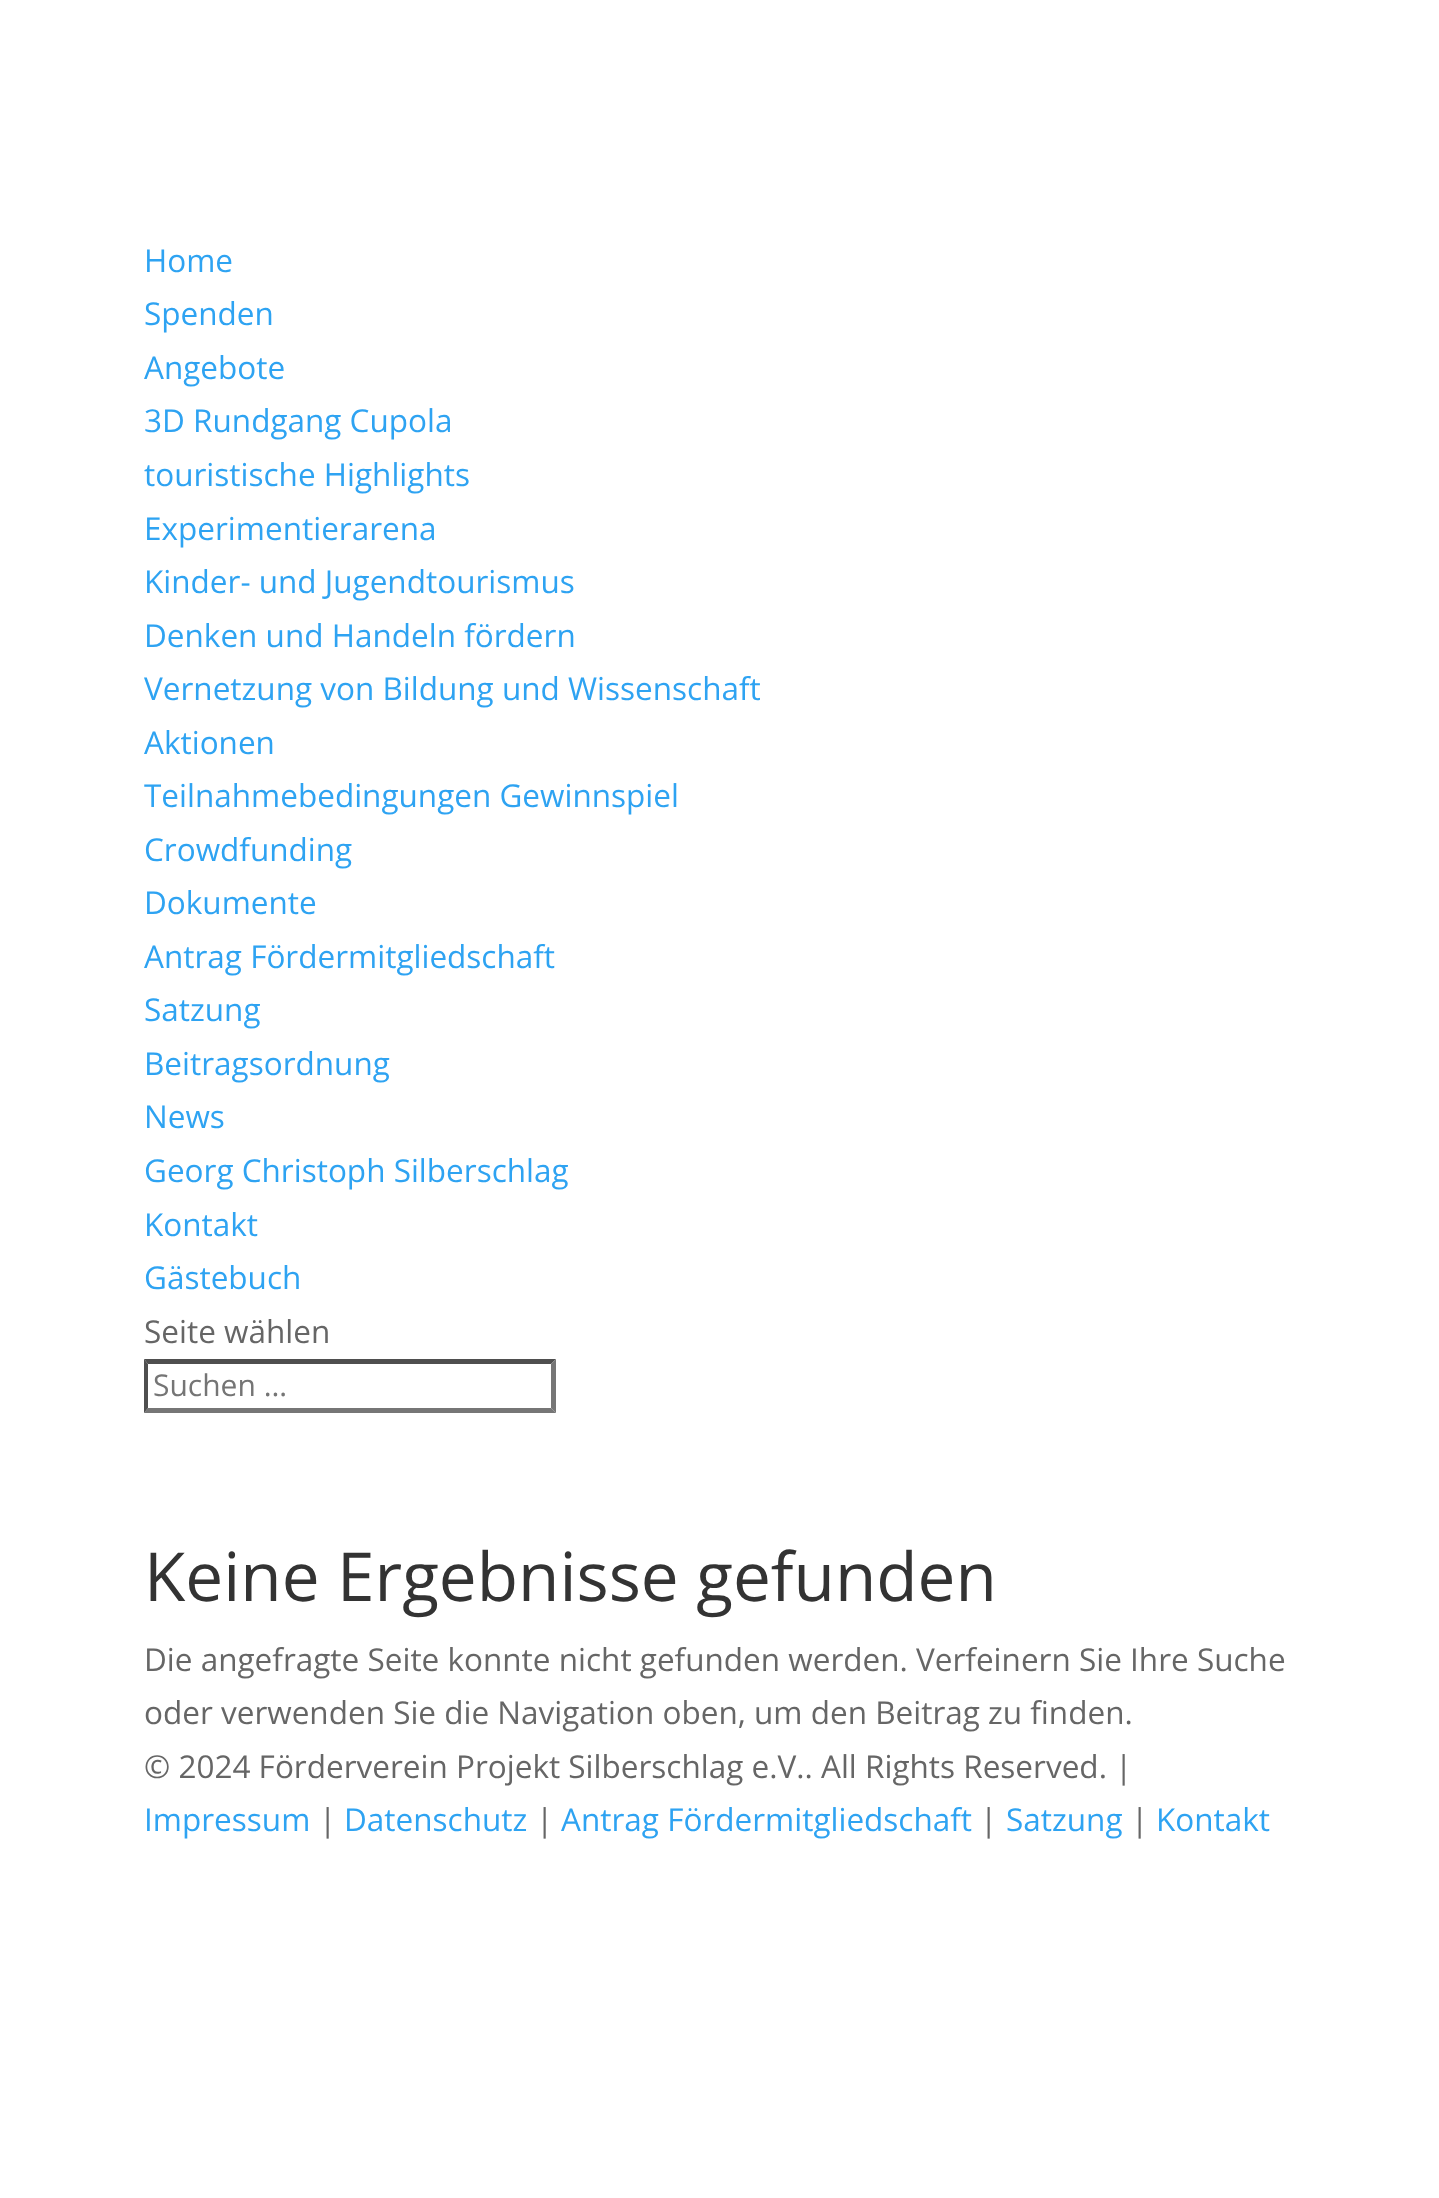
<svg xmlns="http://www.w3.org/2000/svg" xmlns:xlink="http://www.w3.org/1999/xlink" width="1439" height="2198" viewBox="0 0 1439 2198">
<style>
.cls-1{font:31.5px Open Sans;fill:#2ea3f2}
.cls-2{font:31.5px Open Sans;fill:#666666}
.cls-3{font:30px Open Sans;fill:#757575}
.cls-4{font:67.5px Open Sans;fill:#333333}
</style>
<rect width="100%" height="100%" fill="#ffffff"/>
<path fill="#4f4f4f" d="M144 1359H556L551 1364H148Z"/>
<path fill="#767676" d="M556 1359V1413L551 1408V1364Z"/>
<path fill="#767676" d="M556 1413H144L148 1408H551Z"/>
<path fill="#4f4f4f" d="M144 1413V1359L148 1364V1408Z"/>
<text class="cls-1"><tspan x="144" y="272">Home</tspan><tspan x="144" y="325">Spenden</tspan><tspan x="144" y="379">Angebote</tspan><tspan x="144" y="432">3D Rundgang Cupola</tspan><tspan x="144" y="486">touristische Highlights</tspan><tspan x="144" y="540">Experimentierarena</tspan><tspan x="144" y="593">Kinder- und Jugendtourismus</tspan><tspan x="144" y="647">Denken und Handeln fördern</tspan><tspan x="144" y="700">Vernetzung von Bildung und Wissenschaft</tspan><tspan x="144" y="754">Aktionen</tspan><tspan x="144" y="807">Teilnahmebedingungen Gewinnspiel</tspan><tspan x="144" y="861">Crowdfunding</tspan><tspan x="144" y="914">Dokumente</tspan><tspan x="144" y="968">Antrag Fördermitgliedschaft</tspan><tspan x="144" y="1021">Satzung</tspan><tspan x="144" y="1075">Beitragsordnung</tspan><tspan x="144" y="1128">News</tspan><tspan x="144" y="1182">Georg Christoph Silberschlag</tspan><tspan x="144" y="1236">Kontakt</tspan><tspan x="144" y="1289">Gästebuch</tspan></text>
<text class="cls-2" x="144" y="1343">Seite wählen</text>
<text class="cls-3" x="153" y="1396">Suchen …</text>
<text class="cls-4" x="144" y="1601">Keine Ergebnisse gefunden</text>
<text class="cls-2"><tspan x="144" y="1671">Die angefragte Seite konnte nicht gefunden werden. Verfeinern Sie Ihre Suche</tspan><tspan x="144" y="1724">oder verwenden Sie die Navigation oben, um den Beitrag zu finden.</tspan><tspan x="144" y="1778">© 2024 Förderverein Projekt Silberschlag e.V.. All Rights Reserved. |</tspan></text>
<text class="cls-1" x="144" y="1831">Impressum</text>
<text class="cls-2" x="319" y="1831">|</text>
<text class="cls-1" x="344" y="1831">Datenschutz</text>
<text class="cls-2" x="536" y="1831">|</text>
<text class="cls-1" x="561" y="1831">Antrag Fördermitgliedschaft</text>
<text class="cls-2" x="980" y="1831">|</text>
<text class="cls-1" x="1006" y="1831">Satzung</text>
<text class="cls-2" x="1131" y="1831">|</text>
<text class="cls-1" x="1156" y="1831">Kontakt</text>
</svg>
